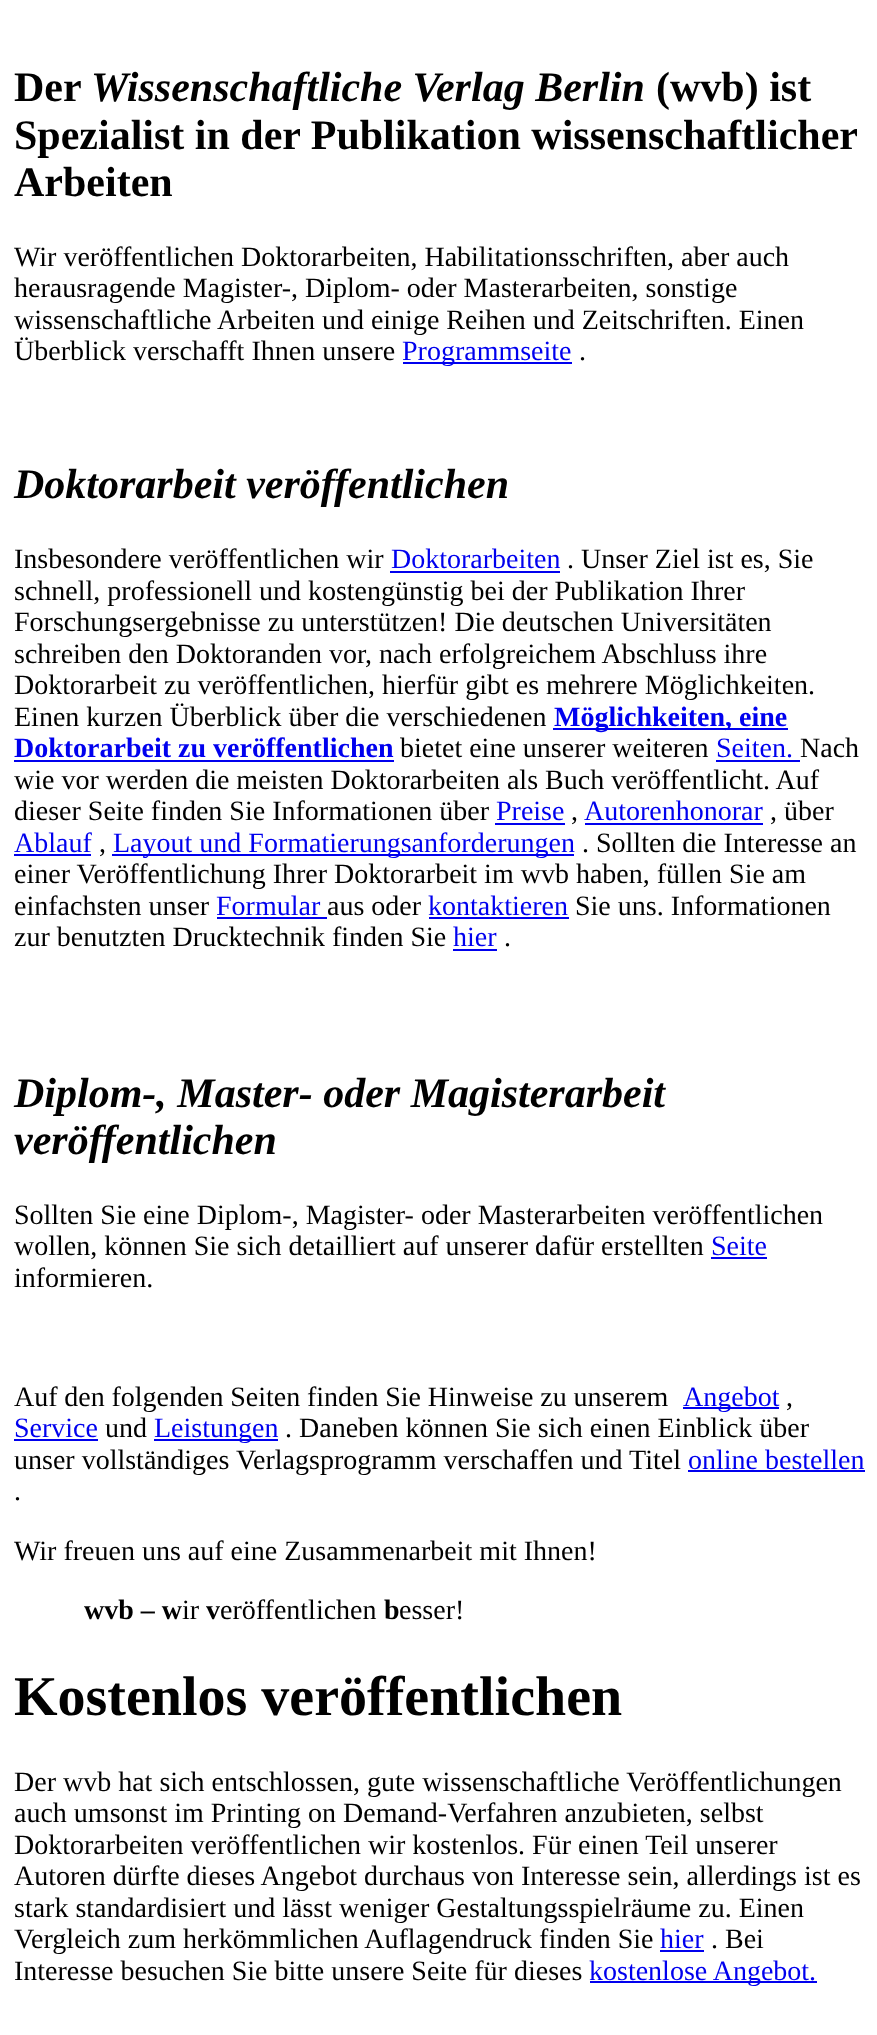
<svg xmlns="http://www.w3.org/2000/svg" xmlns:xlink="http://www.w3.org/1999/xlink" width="877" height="2035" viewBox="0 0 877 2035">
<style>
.cls-1{font:bold 42px Liberation Serif;fill:#000000}
.cls-2{font:italic bold 42px Liberation Serif;fill:#000000}
.cls-3{font:28px Liberation Serif;fill:#000000}
.cls-4{font:28px Liberation Serif;fill:#0000ee}
.cls-5{font:bold 28px Liberation Serif;fill:#0000ee}
.cls-6{font:bold 28px Liberation Serif;fill:#000000}
.cls-7{font:bold 56px Liberation Serif;fill:#000000}
</style>
<rect width="100%" height="100%" fill="#ffffff"/>
<rect fill="#0000ee" x="403" y="362" width="169" height="2"/>
<rect fill="#0000ee" x="390" y="571" width="170" height="2"/>
<rect fill="#0000ee" x="553" y="728" width="235" height="2"/>
<rect fill="#0000ee" x="14" y="760" width="380" height="2"/>
<rect fill="#0000ee" x="716" y="760" width="84" height="2"/>
<rect fill="#0000ee" x="495" y="823" width="70" height="2"/>
<rect fill="#0000ee" x="585" y="823" width="178" height="2"/>
<rect fill="#0000ee" x="14" y="854" width="77" height="2"/>
<rect fill="#0000ee" x="112" y="854" width="462" height="2"/>
<rect fill="#0000ee" x="217" y="917" width="110" height="2"/>
<rect fill="#0000ee" x="429" y="917" width="140" height="2"/>
<rect fill="#0000ee" x="453" y="949" width="44" height="2"/>
<rect fill="#0000ee" x="711" y="1257" width="56" height="2"/>
<rect fill="#0000ee" x="683" y="1407" width="96" height="2"/>
<rect fill="#0000ee" x="14" y="1439" width="84" height="2"/>
<rect fill="#0000ee" x="154" y="1439" width="124" height="2"/>
<rect fill="#0000ee" x="688" y="1470" width="177" height="2"/>
<rect fill="#0000ee" x="660" y="1950" width="44" height="2"/>
<rect fill="#0000ee" x="590" y="1981" width="227" height="2"/>
<text class="cls-1" x="14" y="101">Der</text>
<text class="cls-2" x="91" y="101">Wissenschaftliche Verlag Berlin</text>
<text class="cls-1" x="656" y="101">(wvb) ist</text>
<text class="cls-1"><tspan x="14" y="149">Spezialist in der Publikation wissenschaftlicher</tspan><tspan x="14" y="196">Arbeiten</tspan></text>
<text class="cls-3"><tspan x="14" y="266">Wir veröffentlichen Doktorarbeiten, Habilitationsschriften, aber auch</tspan><tspan x="14" y="297">herausragende Magister-, Diplom- oder Masterarbeiten, sonstige</tspan><tspan x="14" y="329">wissenschaftliche Arbeiten und einige Reihen und Zeitschriften. Einen</tspan><tspan x="14" y="360">Überblick verschafft Ihnen unsere</tspan></text>
<text class="cls-4" x="402" y="360">Programmseite</text>
<text class="cls-3" x="579" y="360">.</text>
<text class="cls-2" x="14" y="498">Doktorarbeit veröffentlichen</text>
<text class="cls-3" x="14" y="568">Insbesondere veröffentlichen wir</text>
<text class="cls-4" x="391" y="568">Doktorarbeiten</text>
<text class="cls-3" x="567" y="568">. Unser Ziel ist es, Sie</text>
<text class="cls-3"><tspan x="14" y="600">schnell, professionell und kostengünstig bei der Publikation Ihrer</tspan><tspan x="14" y="631">Forschungsergebnisse zu unterstützen! Die deutschen Universitäten</tspan><tspan x="14" y="663">schreiben den Doktoranden vor, nach erfolgreichem Abschluss ihre</tspan><tspan x="14" y="694">Doktorarbeit zu veröffentlichen, hierfür gibt es mehrere Möglichkeiten.</tspan><tspan x="14" y="726">Einen kurzen Überblick über die verschiedenen</tspan></text>
<text class="cls-5" x="554" y="726">Möglichkeiten, eine</text>
<text class="cls-5" x="14" y="757">Doktorarbeit zu veröffentlichen</text>
<text class="cls-3" x="400" y="757">bietet eine unserer weiteren</text>
<text class="cls-4" x="716" y="757">Seiten.</text>
<text class="cls-3" x="800" y="757">Nach</text>
<text class="cls-3"><tspan x="14" y="789">wie vor werden die meisten Doktorarbeiten als Buch veröffentlicht. Auf</tspan><tspan x="14" y="820">dieser Seite finden Sie Informationen über</tspan></text>
<text class="cls-4" x="496" y="820">Preise</text>
<text class="cls-3" x="571" y="820">,</text>
<text class="cls-4" x="584" y="820">Autorenhonorar</text>
<text class="cls-3" x="770" y="820">, über</text>
<text class="cls-4" x="14" y="852">Ablauf</text>
<text class="cls-3" x="99" y="852">,</text>
<text class="cls-4" x="113" y="852">Layout und Formatierungsanforderungen</text>
<text class="cls-3" x="582" y="852">. Sollten die Interesse an</text>
<text class="cls-3"><tspan x="14" y="883">einer Veröffentlichung Ihrer Doktorarbeit im wvb haben, füllen Sie am</tspan><tspan x="14" y="915">einfachsten unser</tspan></text>
<text class="cls-4" x="216" y="915">Formular</text>
<text class="cls-3" x="327" y="915">aus oder</text>
<text class="cls-4" x="428" y="915">kontaktieren</text>
<text class="cls-3" x="575" y="915">Sie uns. Informationen</text>
<text class="cls-3" x="14" y="946">zur benutzten Drucktechnik finden Sie</text>
<text class="cls-4" x="453" y="946">hier</text>
<text class="cls-3" x="504" y="946">.</text>
<text class="cls-2"><tspan x="14" y="1107">Diplom-, Master- oder Magisterarbeit</tspan><tspan x="14" y="1154">veröffentlichen</tspan></text>
<text class="cls-3"><tspan x="14" y="1224">Sollten Sie eine Diplom-, Magister- oder Masterarbeiten veröffentlichen</tspan><tspan x="14" y="1255">wollen, können Sie sich detailliert auf unserer dafür erstellten</tspan></text>
<text class="cls-4" x="711" y="1255">Seite</text>
<text class="cls-3" x="14" y="1287">informieren.</text>
<text class="cls-3" x="14" y="1406" word-spacing="-0.25">Auf den folgenden Seiten finden Sie Hinweise zu unserem</text>
<text class="cls-4" x="683" y="1406">Angebot</text>
<text class="cls-3" x="786" y="1406">,</text>
<text class="cls-4" x="14" y="1437">Service</text>
<text class="cls-3" x="105" y="1437">und</text>
<text class="cls-4" x="154" y="1437">Leistungen</text>
<text class="cls-3" x="285" y="1437">. Daneben können Sie sich einen Einblick über</text>
<text class="cls-3" x="14" y="1469">unser vollständiges Verlagsprogramm verschaffen und Titel</text>
<text class="cls-4" x="688" y="1469">online bestellen</text>
<text class="cls-3" x="14" y="1500">.</text>
<text class="cls-3" x="14" y="1560">Wir freuen uns auf eine Zusammenarbeit mit Ihnen!</text>
<text class="cls-6" x="84" y="1619">wvb – w</text>
<text class="cls-3" x="182" y="1619">ir</text>
<text class="cls-6" x="206" y="1619">v</text>
<text class="cls-3" x="220" y="1619">eröffentlichen</text>
<text class="cls-6" x="384" y="1619">b</text>
<text class="cls-3" x="399" y="1619">esser!</text>
<text class="cls-7" x="14" y="1715">Kostenlos veröffentlichen</text>
<text class="cls-3"><tspan x="14" y="1791">Der wvb hat sich entschlossen, gute wissenschaftliche Veröffentlichungen</tspan><tspan x="14" y="1822">auch umsonst im Printing on Demand-Verfahren anzubieten, selbst</tspan><tspan x="14" y="1854">Doktorarbeiten veröffentlichen wir kostenlos. Für einen Teil unserer</tspan><tspan x="14" y="1885">Autoren dürfte dieses Angebot durchaus von Interesse sein, allerdings ist es</tspan><tspan x="14" y="1917">stark standardisiert und lässt weniger Gestaltungsspielräume zu. Einen</tspan><tspan x="14" y="1948">Vergleich zum herkömmlichen Auflagendruck finden Sie</tspan></text>
<text class="cls-4" x="660" y="1948">hier</text>
<text class="cls-3" x="711" y="1948">. Bei</text>
<text class="cls-3" x="14" y="1980">Interesse besuchen Sie bitte unsere Seite für dieses</text>
<text class="cls-4" x="589" y="1980">kostenlose Angebot.</text>
</svg>
